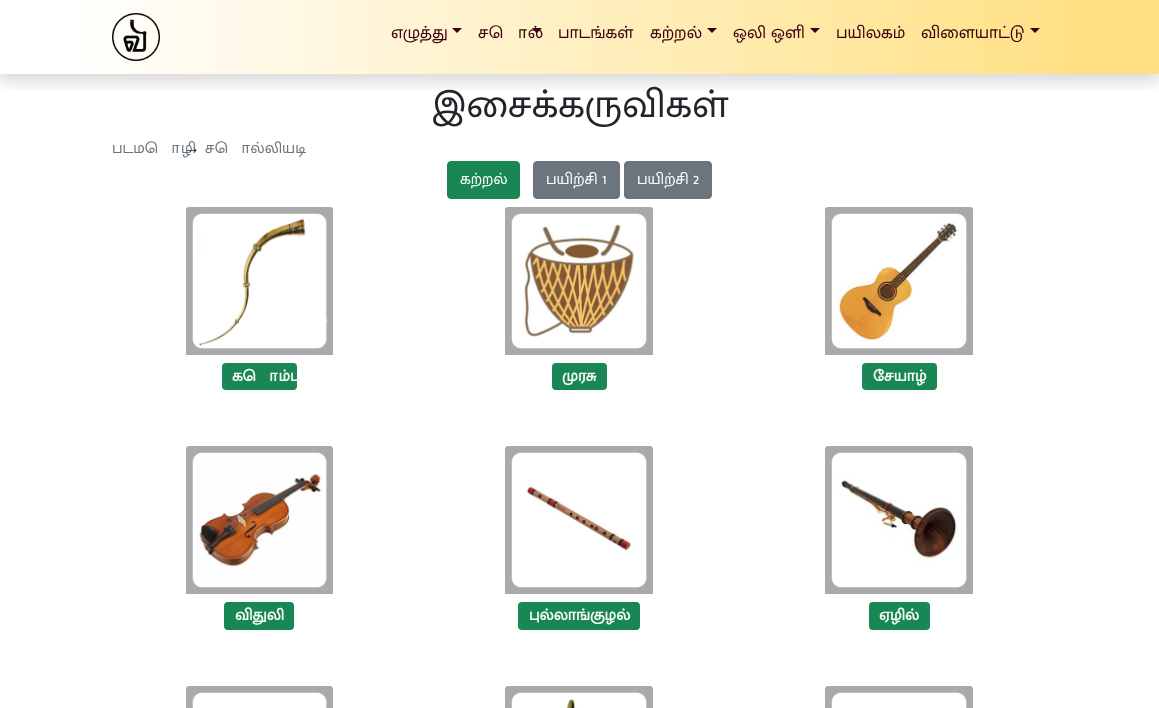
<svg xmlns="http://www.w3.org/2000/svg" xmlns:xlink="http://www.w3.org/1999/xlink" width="1159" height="708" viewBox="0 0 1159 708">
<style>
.cls-1{font:17.5px Mukta Malar;fill:#3a000b}
.cls-2{font:39.5px Mukta Malar;fill:#212529}
.cls-3{font:16px Mukta Malar;fill:#6c757d}
.cls-4{font:16px Liberation Sans;fill:#212529}
.cls-5{font:16px Mukta Malar;fill:#ffffff}
.cls-6{font:bold 16px Mukta Malar;fill:#f8f9fa}
</style>
<defs>
<linearGradient id="g1" gradientUnits="userSpaceOnUse" x1="0" y1="37" x2="1159" y2="37"><stop offset="0.05" stop-color="#ffffff"/><stop offset="0.95" stop-color="#ffe082"/></linearGradient>
<clipPath id="clip1"><rect x="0" y="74" width="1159" height="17"/></clipPath>
</defs>
<rect width="100%" height="100%" fill="#ffffff"/>
<rect fill="url(#g1)" x="79" y="0" width="1080" height="74"/>
<g clip-path="url(#clip1)">
<rect fill="#000000" fill-opacity="0.15" filter="blur(8px)" x="0" y="8" width="1159" height="74"/>
</g>
<image xlink:href="image0.png" x="112" y="13" width="48" height="48"/>
<path fill="#3a000b" d="M452 28H462L457 33Z"/>
<path fill="#3a000b" d="M532 28H542L537 33Z"/>
<path fill="#3a000b" d="M707 28H717L712 33Z"/>
<path fill="#3a000b" d="M810 28H820L815 33Z"/>
<path fill="#3a000b" d="M1030 28H1040L1035 33Z"/>
<rect fill="#198754" stroke="#198754" x="447.5" y="161.5" width="72" height="37" rx="3.5"/>
<rect fill="#6c757d" stroke="#6c757d" x="533.5" y="161.5" width="86" height="37" rx="3.5"/>
<rect fill="#6c757d" stroke="#6c757d" x="624.5" y="161.5" width="87" height="37" rx="3.5"/>
<image xlink:href="image1.png" x="186" y="207" width="147" height="148"/>
<rect fill="#198754" x="222" y="363" width="75" height="27" rx="4"/>
<image xlink:href="image2.png" x="505" y="207" width="148" height="148"/>
<rect fill="#198754" x="552" y="363" width="55" height="27" rx="4"/>
<image xlink:href="image3.png" x="825" y="207" width="148" height="148"/>
<rect fill="#198754" x="862" y="363" width="75" height="27" rx="4"/>
<image xlink:href="image4.png" x="186" y="446" width="147" height="148"/>
<rect fill="#198754" x="224" y="602" width="70" height="28" rx="4"/>
<image xlink:href="image5.png" x="505" y="446" width="148" height="148"/>
<rect fill="#198754" x="518" y="602" width="122" height="28" rx="4"/>
<image xlink:href="image6.png" x="825" y="446" width="148" height="148"/>
<rect fill="#198754" x="869" y="602" width="61" height="28" rx="4"/>
<image xlink:href="image7.png" x="186" y="686" width="147" height="22"/>
<image xlink:href="image8.png" x="505" y="686" width="148" height="22"/>
<image xlink:href="image9.png" x="825" y="686" width="148" height="22"/>
<text class="cls-1" x="391" y="38">எழுத்து</text>
<text class="cls-1" x="478" y="38">சொல்</text>
<text class="cls-1" x="558" y="38">பாடங்கள்</text>
<text class="cls-1" x="650" y="38">கற்றல்</text>
<text class="cls-1" x="733" y="38">ஒலி ஒளி</text>
<text class="cls-1" x="836" y="38">பயிலகம்</text>
<text class="cls-1" x="921" y="38">விளையாட்டு</text>
<text class="cls-2" x="432" y="117">இசைக்கருவிகள்</text>
<text class="cls-3" x="112" y="153">படமொழி</text>
<text class="cls-4" x="184" y="153">→</text>
<text class="cls-3" x="205" y="153">சொல்லியடி</text>
<text class="cls-5" x="460" y="184">கற்றல்</text>
<text class="cls-5" x="546" y="184">பயிற்சி 1</text>
<text class="cls-5" x="637" y="184">பயிற்சி 2</text>
<text class="cls-6" x="232" y="381">கொம்பு</text>
<text class="cls-6" x="562" y="381">முரசு</text>
<text class="cls-6" x="873" y="381">சேயாழ்</text>
<text class="cls-6" x="235" y="620">விதுலி</text>
<text class="cls-6" x="529" y="620">புல்லாங்குழல்</text>
<text class="cls-6" x="879" y="620">ஏழில்</text>
</svg>
